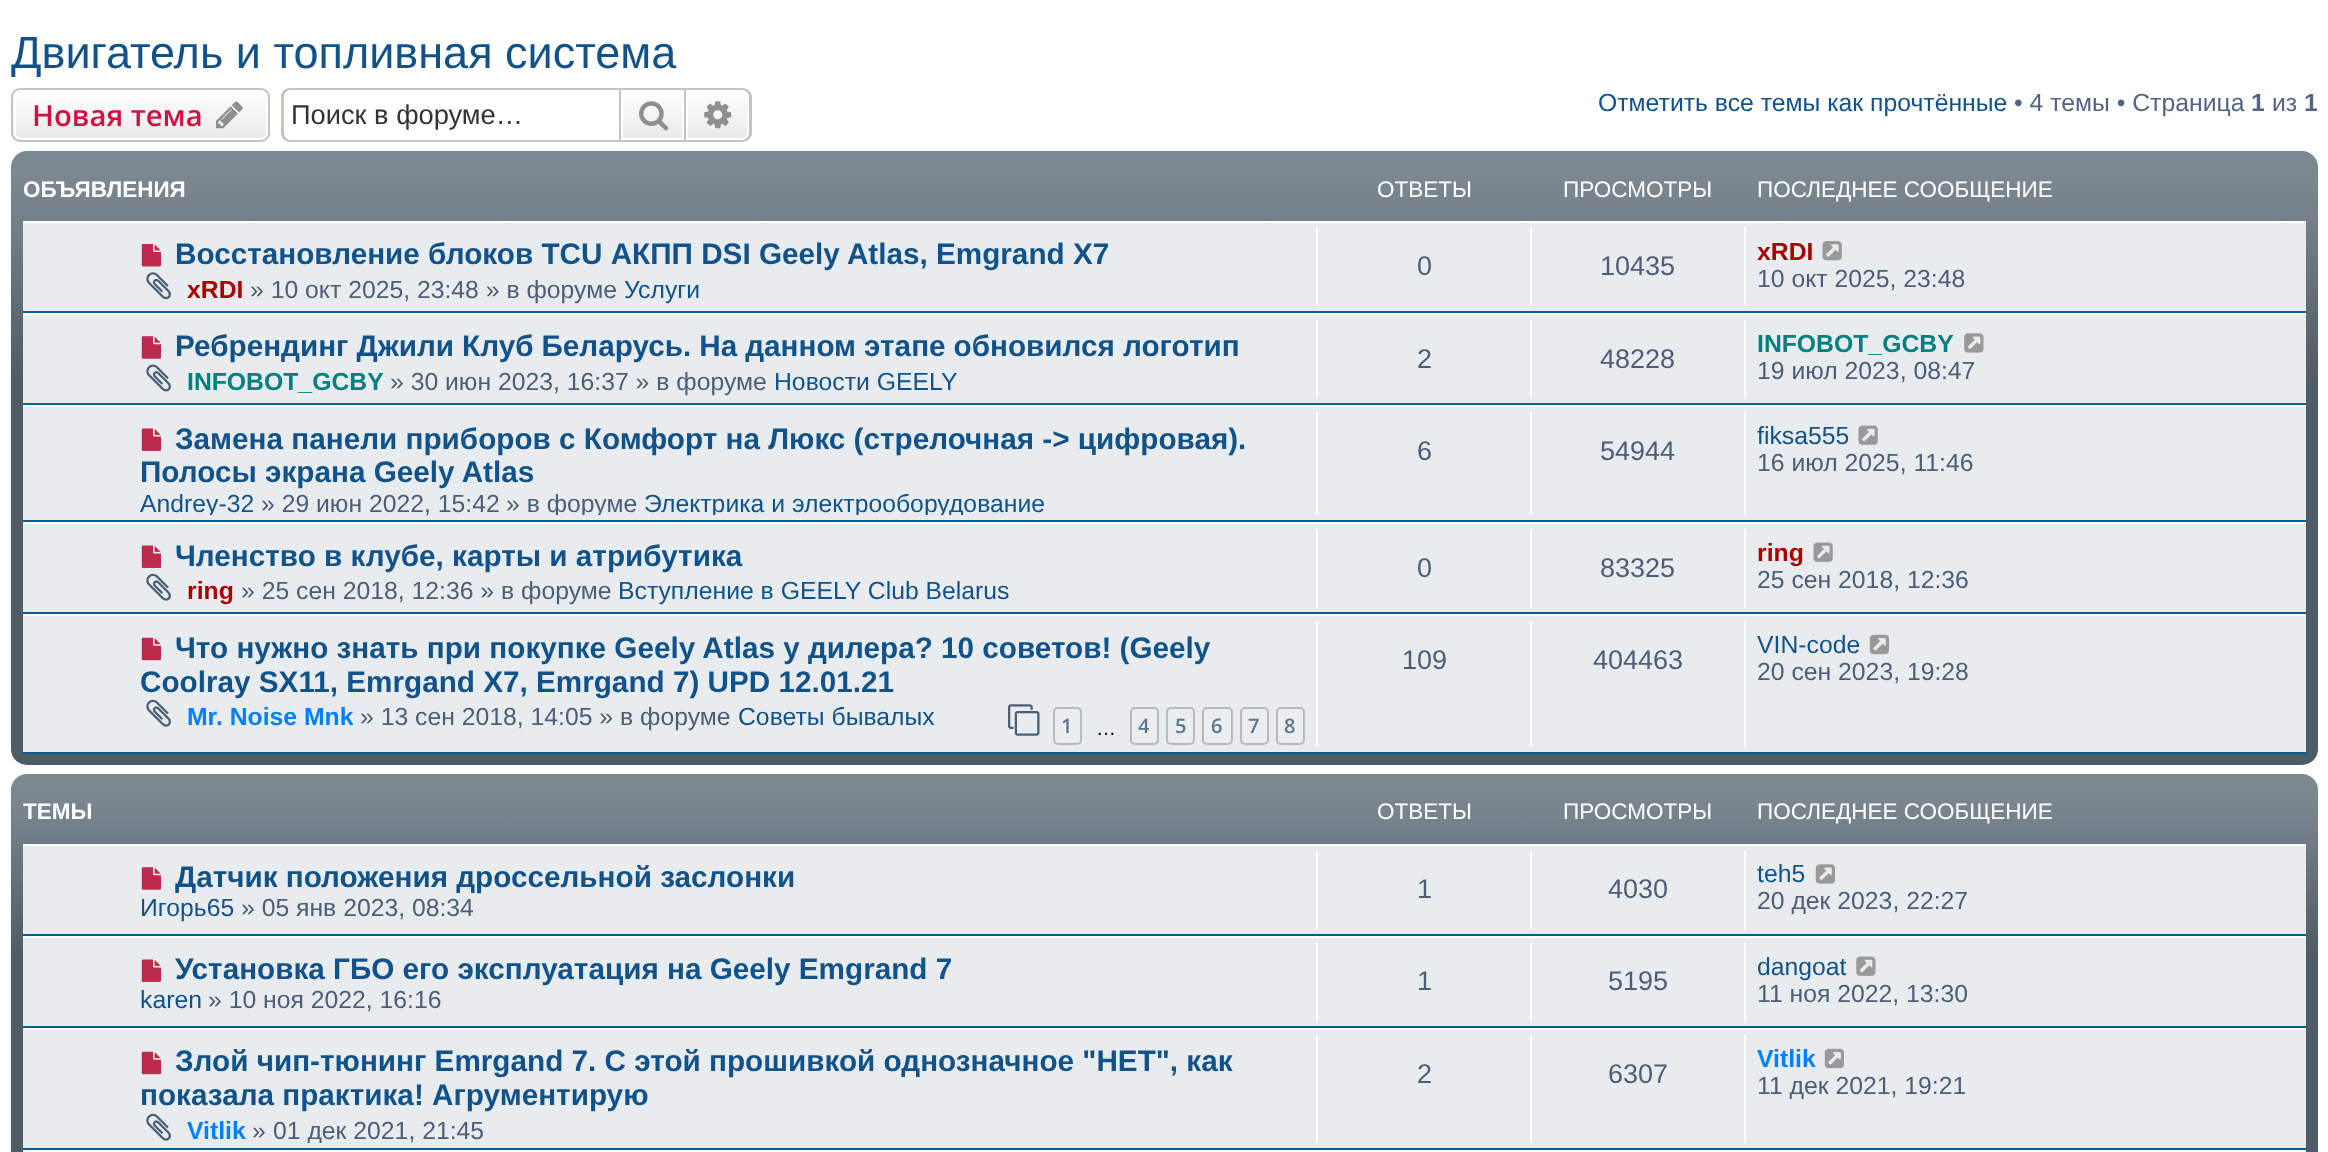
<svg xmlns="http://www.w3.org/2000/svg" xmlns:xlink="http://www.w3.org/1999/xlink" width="2328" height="1152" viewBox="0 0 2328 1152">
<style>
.cls-1{font:45px Liberation Sans;fill:#105289}
.cls-2{font:600 29.25px Open Sans;fill:#d31141}
.cls-3{font:27.25px Liberation Sans;fill:#333333}
.cls-4{font:24.75px Liberation Sans;fill:#105289}
.cls-5{font:24.75px Liberation Sans;fill:#536482}
.cls-6{font:bold 24.75px Liberation Sans;fill:#536482}
.cls-7{font:bold 22.5px Liberation Sans;fill:#ffffff}
.cls-8{font:22.5px Liberation Sans;fill:#ffffff}
.cls-9{font:bold 29.7px Liberation Sans;fill:#105289}
.cls-10{font:bold 24.75px Liberation Sans;fill:#aa0000}
.cls-11{font:24.75px Liberation Sans;fill:#4c5d77}
.cls-12{font:27px Liberation Sans;fill:#4c5d77}
.cls-13{font:bold 24.75px Liberation Sans;fill:#008080}
.cls-14{font:bold 24.75px Liberation Sans;fill:#0080ff}
.cls-15{font:600 20px Open Sans;fill:#5c758c}
.cls-16{font:20px Liberation Sans;fill:#000000}
</style>
<defs>
<clipPath id="clip1"><rect x="11" y="88" width="259" height="54" rx="9"/></clipPath>
<linearGradient id="g1" gradientUnits="userSpaceOnUse" x1="141" y1="90" x2="141" y2="140"><stop offset="0" stop-color="#ffffff"/><stop offset="1" stop-color="#e9e9e9"/></linearGradient>
<linearGradient id="g2" gradientUnits="userSpaceOnUse" x1="653" y1="90" x2="653" y2="140"><stop offset="0" stop-color="#ffffff"/><stop offset="1" stop-color="#e9e9e9"/></linearGradient>
<linearGradient id="g3" gradientUnits="userSpaceOnUse" x1="718" y1="90" x2="718" y2="140"><stop offset="0" stop-color="#ffffff"/><stop offset="1" stop-color="#e9e9e9"/></linearGradient>
<linearGradient id="g4" gradientUnits="userSpaceOnUse" x1="1164" y1="151" x2="1164" y2="765"><stop offset="0" stop-color="#7c8891"/><stop offset="0.04" stop-color="#7c8790"/><stop offset="0.1" stop-color="#76828b"/><stop offset="0.29" stop-color="#5b666f"/><stop offset="0.38" stop-color="#505c65"/><stop offset="1" stop-color="#505c65"/></linearGradient>
<linearGradient id="g5" gradientUnits="userSpaceOnUse" x1="1164" y1="774" x2="1164" y2="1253"><stop offset="0" stop-color="#7c8891"/><stop offset="0.04" stop-color="#7c8790"/><stop offset="0.1" stop-color="#76828b"/><stop offset="0.29" stop-color="#5b666f"/><stop offset="0.38" stop-color="#505c65"/><stop offset="1" stop-color="#505c65"/></linearGradient>
<clipPath id="clip2"><rect x="23" y="412" width="2283" height="103"/></clipPath>
<clipPath id="clip3"><rect x="23" y="785" width="2283" height="59"/></clipPath>
<clipPath id="clip4"><rect x="23" y="1035" width="2283" height="108"/></clipPath>
</defs>
<rect width="100%" height="100%" fill="#ffffff"/>
<g clip-path="url(#clip1)">
<rect fill="url(#g1)" x="11" y="90" width="259" height="50"/>
</g>
<rect fill="none" stroke="#ffffff" stroke-width="2" x="15" y="91" width="252" height="48" rx="6"/>
<rect fill="none" stroke="#c7c3bf" stroke-width="2" x="12" y="89" width="257" height="52" rx="8"/>
<image xlink:href="image0.png" x="216" y="101" width="27" height="28"/>
<path fill="#c7c3bf" fill-rule="evenodd" d="M290 88H619V142H290C285 142 281 138 281 133V97C281 92 285 88 290 88ZM290 90H619V140H290C287 140 284 136 284 133V97C284 93 287 90 290 90Z"/>
<rect fill="url(#g2)" x="623" y="96" width="59" height="42"/>
<rect fill="none" stroke="#c7c3bf" stroke-width="2" x="620" y="89" width="65" height="52"/>
<image xlink:href="image1.png" x="639" y="101" width="30" height="30"/>
<path fill="url(#g3)" stroke="#ffffff" stroke-width="2" d="M687 91H742C745.5 91 748 93.5 748 97V133C748 136.5 745.5 139 742 139H687Z"/>
<path fill="#c7c3bf" fill-rule="evenodd" d="M686 88H742C747 88 752 92 752 97V133C752 138 747 142 742 142H686ZM686 90H742C746 90 749 93 749 97V133C749 136 746 140 742 140H686Z"/>
<image xlink:href="image2.png" x="704" y="101" width="28" height="28"/>
<rect fill="url(#g4)" x="11" y="151" width="2307" height="614" rx="16"/>
<rect fill="#e8ecee" x="23" y="223" width="2283" height="88"/>
<rect fill="#ffffff" x="23" y="221" width="2283" height="2"/>
<rect fill="#00608f" x="23" y="311" width="2283" height="2"/>
<image xlink:href="image3.png" x="141" y="243" width="21" height="24"/>
<image xlink:href="image4.png" x="146" y="272" width="25" height="28"/>
<rect fill="#ffffff" x="1316" y="227" width="2" height="79"/>
<rect fill="#ffffff" x="1530" y="227" width="2" height="79"/>
<rect fill="#ffffff" x="1744" y="227" width="2" height="79"/>
<image xlink:href="image5.png" x="1822" y="241" width="20" height="20"/>
<rect fill="#e8ecee" x="23" y="315" width="2283" height="88"/>
<rect fill="#ffffff" x="23" y="313" width="2283" height="2"/>
<rect fill="#00608f" x="23" y="403" width="2283" height="2"/>
<image xlink:href="image6.png" x="141" y="336" width="21" height="23"/>
<image xlink:href="image7.png" x="146" y="364" width="25" height="28"/>
<rect fill="#ffffff" x="1316" y="320" width="2" height="78"/>
<rect fill="#ffffff" x="1530" y="320" width="2" height="78"/>
<rect fill="#ffffff" x="1744" y="320" width="2" height="78"/>
<image xlink:href="image8.png" x="1964" y="333" width="20" height="20"/>
<rect fill="#e8ecee" x="23" y="407" width="2283" height="113"/>
<rect fill="#ffffff" x="23" y="405" width="2283" height="2"/>
<rect fill="#00608f" x="23" y="520" width="2283" height="2"/>
<image xlink:href="image9.png" x="141" y="428" width="21" height="23"/>
<rect fill="#ffffff" x="1316" y="412" width="2" height="103"/>
<rect fill="#ffffff" x="1530" y="412" width="2" height="103"/>
<rect fill="#ffffff" x="1744" y="412" width="2" height="103"/>
<image xlink:href="image10.png" x="1858" y="425" width="20" height="20"/>
<rect fill="#e8ecee" x="23" y="524" width="2283" height="88"/>
<rect fill="#ffffff" x="23" y="522" width="2283" height="2"/>
<rect fill="#00608f" x="23" y="612" width="2283" height="2"/>
<image xlink:href="image9.png" x="141" y="545" width="21" height="23"/>
<image xlink:href="image11.png" x="146" y="573" width="25" height="28"/>
<rect fill="#ffffff" x="1316" y="529" width="2" height="79"/>
<rect fill="#ffffff" x="1530" y="529" width="2" height="79"/>
<rect fill="#ffffff" x="1744" y="529" width="2" height="79"/>
<image xlink:href="image10.png" x="1813" y="542" width="20" height="20"/>
<rect fill="#e8ecee" x="23" y="616" width="2283" height="136"/>
<rect fill="#ffffff" x="23" y="614" width="2283" height="2"/>
<rect fill="#00608f" x="23" y="752" width="2283" height="2"/>
<image xlink:href="image12.png" x="141" y="637" width="21" height="24"/>
<image xlink:href="image11.png" x="146" y="699" width="25" height="28"/>
<image xlink:href="image13.png" x="1008" y="704" width="32" height="32"/>
<rect fill="#ecedee" stroke="#b4bac0" stroke-width="2" x="1054" y="708" width="27" height="36" rx="4"/>
<rect fill="#ecedee" stroke="#b4bac0" stroke-width="2" x="1131" y="708" width="27" height="36" rx="4"/>
<rect fill="#ecedee" stroke="#b4bac0" stroke-width="2" x="1167" y="708" width="27" height="36" rx="4"/>
<rect fill="#ecedee" stroke="#b4bac0" stroke-width="2" x="1203" y="708" width="29" height="36" rx="4"/>
<rect fill="#ecedee" stroke="#b4bac0" stroke-width="2" x="1241" y="708" width="27" height="36" rx="4"/>
<rect fill="#ecedee" stroke="#b4bac0" stroke-width="2" x="1277" y="708" width="27" height="36" rx="4"/>
<rect fill="#ffffff" x="1316" y="621" width="2" height="126"/>
<rect fill="#ffffff" x="1530" y="621" width="2" height="126"/>
<rect fill="#ffffff" x="1744" y="621" width="2" height="126"/>
<image xlink:href="image14.png" x="1869" y="634" width="20" height="21"/>
<rect fill="url(#g5)" x="11" y="774" width="2307" height="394" rx="16"/>
<rect fill="#e8ecee" x="23" y="846" width="2283" height="88"/>
<rect fill="#ffffff" x="23" y="844" width="2283" height="2"/>
<rect fill="#00608f" x="23" y="934" width="2283" height="2"/>
<image xlink:href="image6.png" x="141" y="867" width="21" height="23"/>
<rect fill="#ffffff" x="1316" y="851" width="2" height="78"/>
<rect fill="#ffffff" x="1530" y="851" width="2" height="78"/>
<rect fill="#ffffff" x="1744" y="851" width="2" height="78"/>
<image xlink:href="image15.png" x="1815" y="864" width="20" height="20"/>
<rect fill="#e8ecee" x="23" y="938" width="2283" height="88"/>
<rect fill="#ffffff" x="23" y="936" width="2283" height="2"/>
<rect fill="#00608f" x="23" y="1026" width="2283" height="2"/>
<image xlink:href="image9.png" x="141" y="959" width="21" height="23"/>
<rect fill="#ffffff" x="1316" y="943" width="2" height="79"/>
<rect fill="#ffffff" x="1530" y="943" width="2" height="79"/>
<rect fill="#ffffff" x="1744" y="943" width="2" height="79"/>
<image xlink:href="image16.png" x="1856" y="956" width="20" height="20"/>
<rect fill="#e8ecee" x="23" y="1030" width="2283" height="118"/>
<rect fill="#ffffff" x="23" y="1028" width="2283" height="2"/>
<rect fill="#00608f" x="23" y="1148" width="2283" height="2"/>
<image xlink:href="image12.png" x="141" y="1051" width="21" height="24"/>
<image xlink:href="image11.png" x="146" y="1113" width="25" height="28"/>
<rect fill="#ffffff" x="1316" y="1035" width="2" height="108"/>
<rect fill="#ffffff" x="1530" y="1035" width="2" height="108"/>
<rect fill="#ffffff" x="1744" y="1035" width="2" height="108"/>
<image xlink:href="image14.png" x="1824" y="1048" width="20" height="21"/>
<rect fill="#ffffff" x="23" y="1150" width="2283" height="2"/>
<text class="cls-1" x="11" y="68">Двигатель и топливная система</text>
<text class="cls-2" x="32" y="126">Новая тема</text>
<text class="cls-3" x="291" y="124">Поиск в форуме…</text>
<text class="cls-4" x="1598" y="111">Отметить все темы как прочтённые</text>
<text class="cls-5" x="2014" y="111">• 4 темы • Страница</text>
<text class="cls-6" x="2251" y="111">1</text>
<text class="cls-5" x="2272" y="111">из</text>
<text class="cls-6" x="2304" y="111">1</text>
<text class="cls-7" x="23" y="197">ОБЪЯВЛЕНИЯ</text>
<text class="cls-8" x="1377" y="197">ОТВЕТЫ</text>
<text class="cls-8" x="1563" y="197">ПРОСМОТРЫ</text>
<text class="cls-8" x="1757" y="197">ПОСЛЕДНЕЕ СООБЩЕНИЕ</text>
<text class="cls-9" x="175" y="264">Восстановление блоков TCU АКПП DSI Geely Atlas, Emgrand X7</text>
<text class="cls-10" x="187" y="298">xRDI</text>
<text class="cls-11" x="250" y="298">» 10 окт 2025, 23:48 » в форуме</text>
<text class="cls-4" x="624" y="298">Услуги</text>
<text class="cls-12" x="1417" y="275">0</text>
<text class="cls-12" x="1600" y="275">10435</text>
<text class="cls-10" x="1757" y="260">xRDI</text>
<text class="cls-11" x="1757" y="287">10 окт 2025, 23:48</text>
<text class="cls-9" x="175" y="356" word-spacing="-0.25">Ребрендинг Джили Клуб Беларусь. На данном этапе обновился логотип</text>
<text class="cls-13" x="187" y="390">INFOBOT_GCBY</text>
<text class="cls-11" x="390" y="390">» 30 июн 2023, 16:37 » в форуме</text>
<text class="cls-4" x="774" y="390">Новости GEELY</text>
<text class="cls-12" x="1417" y="368">2</text>
<text class="cls-12" x="1600" y="368">48228</text>
<text class="cls-13" x="1757" y="352">INFOBOT_GCBY</text>
<text class="cls-11" x="1757" y="379">19 июл 2023, 08:47</text>
<text class="cls-9" x="175" y="449">Замена панели приборов с Комфорт на Люкс (стрелочная -&gt; цифровая).</text>
<text class="cls-9" x="140" y="482">Полосы экрана Geely Atlas</text>
<g clip-path="url(#clip2)">
<text class="cls-4" x="140" y="512">Andrey-32</text>
</g>
<text class="cls-11" x="261" y="512">» 29 июн 2022, 15:42</text>
<g clip-path="url(#clip2)">
<text class="cls-11" x="506" y="512">» в форуме</text>
<text class="cls-4" x="644" y="512">Электрика и электрооборудование</text>
</g>
<text class="cls-12" x="1417" y="460">6</text>
<text class="cls-12" x="1600" y="460">54944</text>
<text class="cls-4" x="1757" y="444">fiksa555</text>
<text class="cls-11" x="1757" y="471">16 июл 2025, 11:46</text>
<text class="cls-9" x="175" y="566">Членство в клубе, карты и атрибутика</text>
<text class="cls-10" x="187" y="599">ring</text>
<text class="cls-11" x="241" y="599">» 25 сен 2018, 12:36 » в форуме</text>
<text class="cls-4" x="618" y="599">Вступление в GEELY Club Belarus</text>
<text class="cls-12" x="1417" y="577">0</text>
<text class="cls-12" x="1600" y="577">83325</text>
<text class="cls-10" x="1757" y="561">ring</text>
<text class="cls-11" x="1757" y="588">25 сен 2018, 12:36</text>
<text class="cls-9" x="175" y="658">Что нужно знать при покупке Geely Atlas у дилера? 10 советов! (Geely</text>
<text class="cls-9" x="140" y="692">Coolray SX11, Emrgand X7, Emrgand 7) UPD 12.01.21</text>
<text class="cls-14" x="187" y="725">Mr. Noise Mnk</text>
<text class="cls-11" x="360" y="725">» 13 сен 2018, 14:05 » в форуме</text>
<text class="cls-4" x="738" y="725">Советы бывалых</text>
<text class="cls-15" x="1061" y="733">1</text>
<text class="cls-16" x="1096" y="735">…</text>
<text class="cls-15" x="1138" y="733">4</text>
<text class="cls-15" x="1175" y="733">5</text>
<text class="cls-15" x="1211" y="733">6</text>
<text class="cls-15" x="1248" y="733">7</text>
<text class="cls-15" x="1284" y="733">8</text>
<text class="cls-12" x="1402" y="669">109</text>
<text class="cls-12" x="1593" y="669">404463</text>
<text class="cls-4" x="1757" y="653">VIN-code</text>
<text class="cls-11" x="1757" y="680">20 сен 2023, 19:28</text>
<g clip-path="url(#clip3)">
<text class="cls-7" x="23" y="819">ТЕМЫ</text>
</g>
<text class="cls-8" x="1377" y="819">ОТВЕТЫ</text>
<text class="cls-8" x="1563" y="819">ПРОСМОТРЫ</text>
<text class="cls-8" x="1757" y="819">ПОСЛЕДНЕЕ СООБЩЕНИЕ</text>
<text class="cls-9" x="175" y="887">Датчик положения дроссельной заслонки</text>
<text class="cls-4" x="140" y="916">Игорь65</text>
<text class="cls-11" x="241" y="916">» 05 янв 2023, 08:34</text>
<text class="cls-12" x="1417" y="898">1</text>
<text class="cls-12" x="1608" y="898">4030</text>
<text class="cls-4" x="1757" y="882">teh5</text>
<text class="cls-11" x="1757" y="909">20 дек 2023, 22:27</text>
<text class="cls-9" x="175" y="979">Установка ГБО его эксплуатация на Geely Emgrand 7</text>
<text class="cls-4" x="140" y="1008">karen</text>
<text class="cls-11" x="208" y="1008">» 10 ноя 2022, 16:16</text>
<text class="cls-12" x="1417" y="990">1</text>
<text class="cls-12" x="1608" y="990">5195</text>
<text class="cls-4" x="1757" y="975">dangoat</text>
<text class="cls-11" x="1757" y="1002">11 ноя 2022, 13:30</text>
<text class="cls-9" x="175" y="1071">Злой чип-тюнинг Emrgand 7. С этой прошивкой однозначное "НЕТ", как</text>
<text class="cls-9" x="140" y="1105">показала практика! Агрументирую</text>
<text class="cls-14" x="187" y="1139">Vitlik</text>
<text class="cls-11" x="252" y="1139">»</text>
<g clip-path="url(#clip4)">
<text class="cls-11" x="273" y="1139">01 дек 2021, 21:45</text>
</g>
<text class="cls-12" x="1417" y="1083">2</text>
<text class="cls-12" x="1608" y="1083">6307</text>
<text class="cls-14" x="1757" y="1067">Vitlik</text>
<text class="cls-11" x="1757" y="1094">11 дек 2021, 19:21</text>
</svg>
